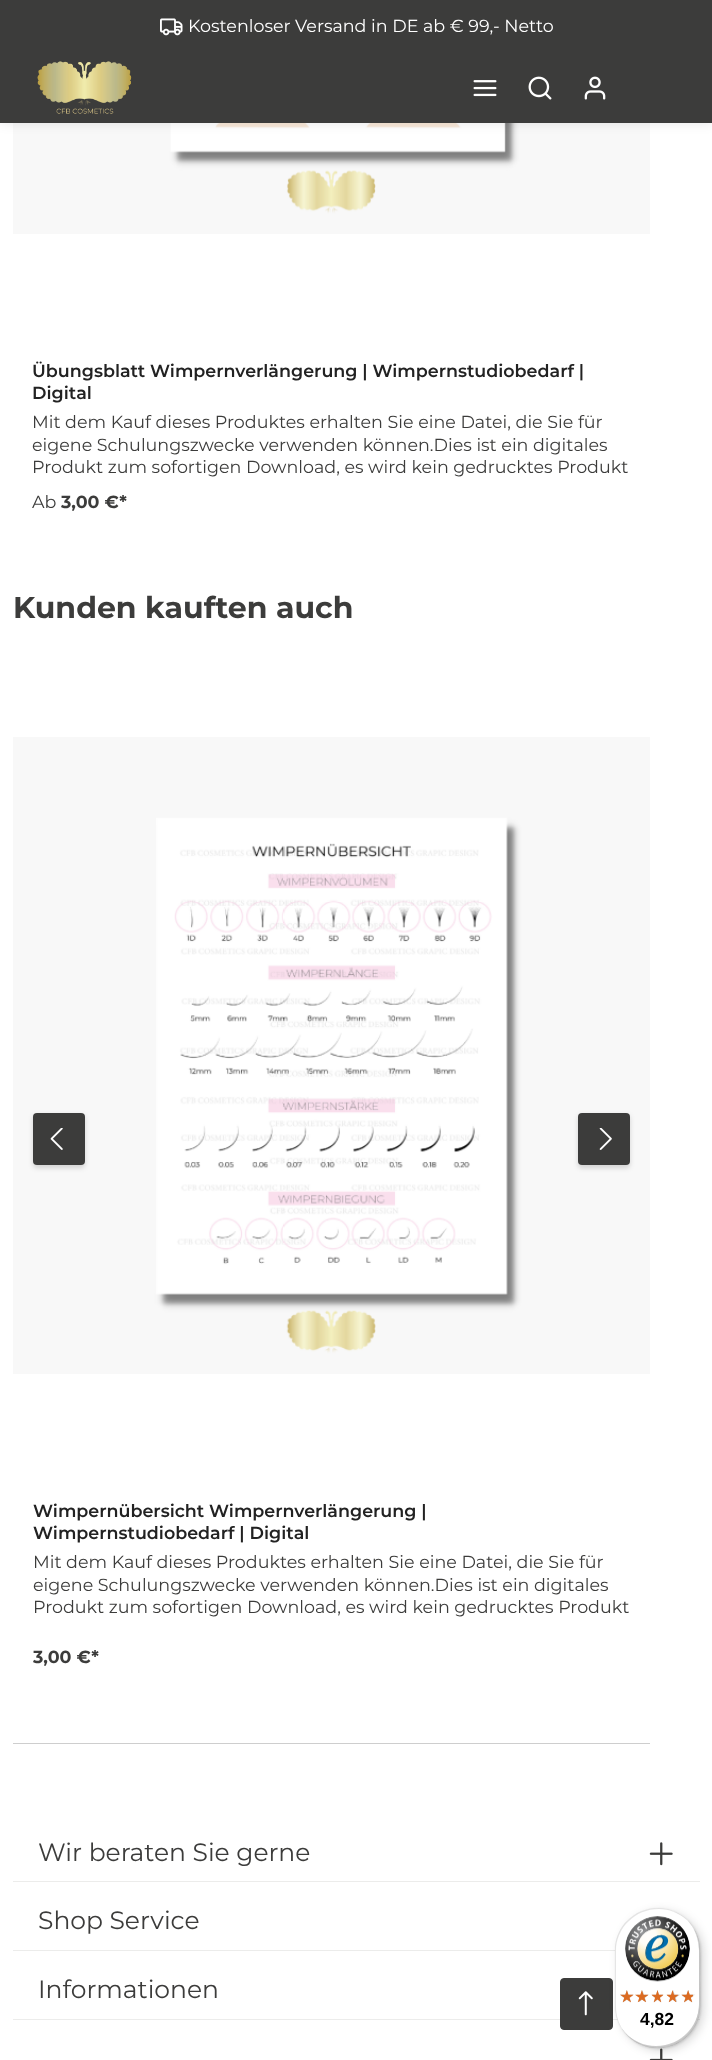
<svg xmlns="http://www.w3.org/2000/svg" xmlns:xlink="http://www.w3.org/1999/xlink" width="712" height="2060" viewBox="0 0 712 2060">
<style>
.cls-1{font:100 17.5px Montserrat;fill:#ffffff}
.cls-2{font:100 17.5px 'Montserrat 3';fill:#222222}
.cls-3{font:100 17.5px Montserrat;fill:#3c3c3b}
.cls-4{font:100 17.5px 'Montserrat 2';fill:#3c3c3b}
.cls-5{font:100 30px 'Montserrat 2';fill:#3c3c3b}
.cls-6{font:100 25px Montserrat;fill:#3c3c3b}
.cls-7{font:bold 17.5px Liberation Sans;fill:#000000}
</style>
<defs>
<clipPath id="clip1"><path d="M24 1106H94V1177H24ZM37 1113H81C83 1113 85 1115 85 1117V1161C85 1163 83 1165 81 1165H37C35 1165 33 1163 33 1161V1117C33 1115 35 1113 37 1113Z" clip-rule="evenodd"/></clipPath>
<clipPath id="clip2"><path d="M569 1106H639V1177H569ZM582 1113H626C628 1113 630 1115 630 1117V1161C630 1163 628 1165 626 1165H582C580 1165 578 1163 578 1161V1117C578 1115 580 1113 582 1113Z" clip-rule="evenodd"/></clipPath>
</defs>
<rect width="100%" height="100%" fill="#ffffff"/>
<image xlink:href="image5.png" x="13" y="123" width="637" height="111"/>
<rect fill="#000000" fill-opacity="0.1" filter="blur(6px)" x="0" y="0" width="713" height="123"/>
<rect fill="#3c3c3b" x="0" y="0" width="712" height="123"/>
<image xlink:href="image0.png" x="37" y="61" width="95" height="53"/>
<image xlink:href="image1.png" x="473" y="80" width="24" height="17"/>
<image xlink:href="image2.png" x="528" y="76" width="24" height="24"/>
<image xlink:href="image3.png" x="584" y="76" width="22" height="24"/>
<image xlink:href="image4.png" x="160" y="18" width="23" height="18"/>
<image xlink:href="image8.png" x="13" y="737" width="637" height="637"/>
<rect fill="#3c3c3b" x="33" y="1113" width="52" height="52" rx="4"/>
<g clip-path="url(#clip1)">
<rect fill="#000000" fill-opacity="0.15" filter="blur(2.5px)" x="33" y="1115" width="52" height="53" rx="4"/>
</g>
<image xlink:href="image6.png" x="50" y="1128" width="13" height="22"/>
<rect fill="#3c3c3b" x="578" y="1113" width="52" height="52" rx="4"/>
<g clip-path="url(#clip2)">
<rect fill="#000000" fill-opacity="0.15" filter="blur(2.5px)" x="578" y="1115" width="52" height="53" rx="4"/>
</g>
<image xlink:href="image7.png" x="599" y="1128" width="13" height="22"/>
<rect fill="#cecece" x="13" y="1743" width="637" height="1"/>
<rect fill="#ececeb" x="13" y="1881" width="687" height="1"/>
<image xlink:href="image9.png" x="649" y="1842" width="24" height="24"/>
<rect fill="#ececeb" x="13" y="1950" width="687" height="1"/>
<rect fill="#ececeb" x="13" y="2019" width="687" height="1"/>
<image xlink:href="image10.png" x="649" y="2048" width="24" height="12"/>
<rect fill="#3c3c3b" stroke="#3c3c3b" x="560.5" y="1978.5" width="52" height="51" rx="3.5"/>
<image xlink:href="image11.png" x="578" y="1991" width="15" height="25"/>
<rect fill="#000000" fill-opacity="0.15" filter="blur(5px)" x="619" y="1911" width="85" height="140" rx="42.5"/>
<rect fill="#000000" fill-opacity="0.15" filter="blur(1px)" x="616" y="1909" width="85" height="140" rx="42.5"/>
<rect fill="#ffffff" x="615" y="1908" width="85" height="140" rx="42.5"/>
<path fill="#000000" fill-opacity="0.1" d="M659 1909C669 1909 678 1913 686 1919C678 1912 668 1908 658 1908C634 1908 615 1927 615 1950V2006C615 2018 621 2030 630 2038C621 2030 616 2019 616 2006V1951C616 1928 635 1909 659 1909Z"/>
<path fill="#000000" fill-opacity="0.2" d="M620 2025C627 2039 641 2048 658 2048C681 2048 700 2029 700 2006V1950C700 1943 698 1935 694 1929C697 1935 699 1942 699 1949V2004C699 2027 680 2046 656 2046C641 2046 627 2038 620 2025Z"/>
<path fill="#323232" fill-opacity="0.2" d="M625 2033C646 2057 684 2051 697 2022C702 2010 700 1992 700 1978C700 1959 703 1938 689 1922C702 1938 699 1958 699 1976C699 1990 701 2008 696 2021C684 2050 646 2056 625 2033Z"/>
<path fill="#ffffff" fill-opacity="0.3" d="M625 2033C646 2057 684 2051 697 2022C702 2010 700 1992 700 1978C700 1959 703 1938 689 1922C702 1938 699 1958 699 1976C699 1990 701 2008 696 2021C684 2050 646 2056 625 2033Z"/>
<image xlink:href="image12.png" x="625" y="1916" width="65" height="66"/>
<image xlink:href="image13.png" x="620" y="1990" width="14" height="13"/>
<image xlink:href="image14.png" x="636" y="1990" width="13" height="12"/>
<image xlink:href="image15.png" x="652" y="1990" width="11" height="13"/>
<image xlink:href="image16.png" x="667" y="1990" width="13" height="12"/>
<image xlink:href="image17.png" x="681" y="1990" width="14" height="13"/>
<image xlink:href="image18.png" x="620" y="1990" width="14" height="13"/>
<image xlink:href="image19.png" x="635" y="1990" width="14" height="13"/>
<image xlink:href="image20.png" x="651" y="1990" width="13" height="13"/>
<image xlink:href="image21.png" x="666" y="1990" width="13" height="13"/>
<image xlink:href="image22.png" x="681" y="1990" width="12" height="13"/>
<text class="cls-1" x="188" y="32">Kostenloser Versand in DE ab € 99,- Netto</text>
<text class="cls-2"><tspan x="32" y="377">Übungsblatt Wimpernverlängerung | Wimpernstudiobedarf |</tspan><tspan x="32" y="399">Digital</tspan></text>
<text class="cls-3"><tspan x="32" y="428">Mit dem Kauf dieses Produktes erhalten Sie eine Datei, die Sie für</tspan><tspan x="32" y="451">eigene Schulungszwecke verwenden können.Dies ist ein digitales</tspan><tspan x="32" y="473">Produkt zum sofortigen Download, es wird kein gedrucktes Produkt</tspan></text>
<text class="cls-3" x="32" y="508">Ab</text>
<text class="cls-4" x="61" y="508">3,00 €*</text>
<text class="cls-5" x="13" y="618">Kunden kauften auch</text>
<text class="cls-2"><tspan x="33" y="1517">Wimpernübersicht Wimpernverlängerung |</tspan><tspan x="33" y="1539">Wimpernstudiobedarf | Digital</tspan></text>
<text class="cls-3"><tspan x="33" y="1568">Mit dem Kauf dieses Produktes erhalten Sie eine Datei, die Sie für</tspan><tspan x="33" y="1591">eigene Schulungszwecke verwenden können.Dies ist ein digitales</tspan><tspan x="33" y="1613">Produkt zum sofortigen Download, es wird kein gedrucktes Produkt</tspan></text>
<text class="cls-4" x="33" y="1663">3,00 €*</text>
<text class="cls-6" x="38" y="1861">Wir beraten Sie gerne</text>
<text class="cls-6" x="38" y="1929">Shop Service</text>
<text class="cls-6" x="38" y="1998">Informationen</text>
<text class="cls-7" x="640" y="2025">4,82</text>
</svg>
